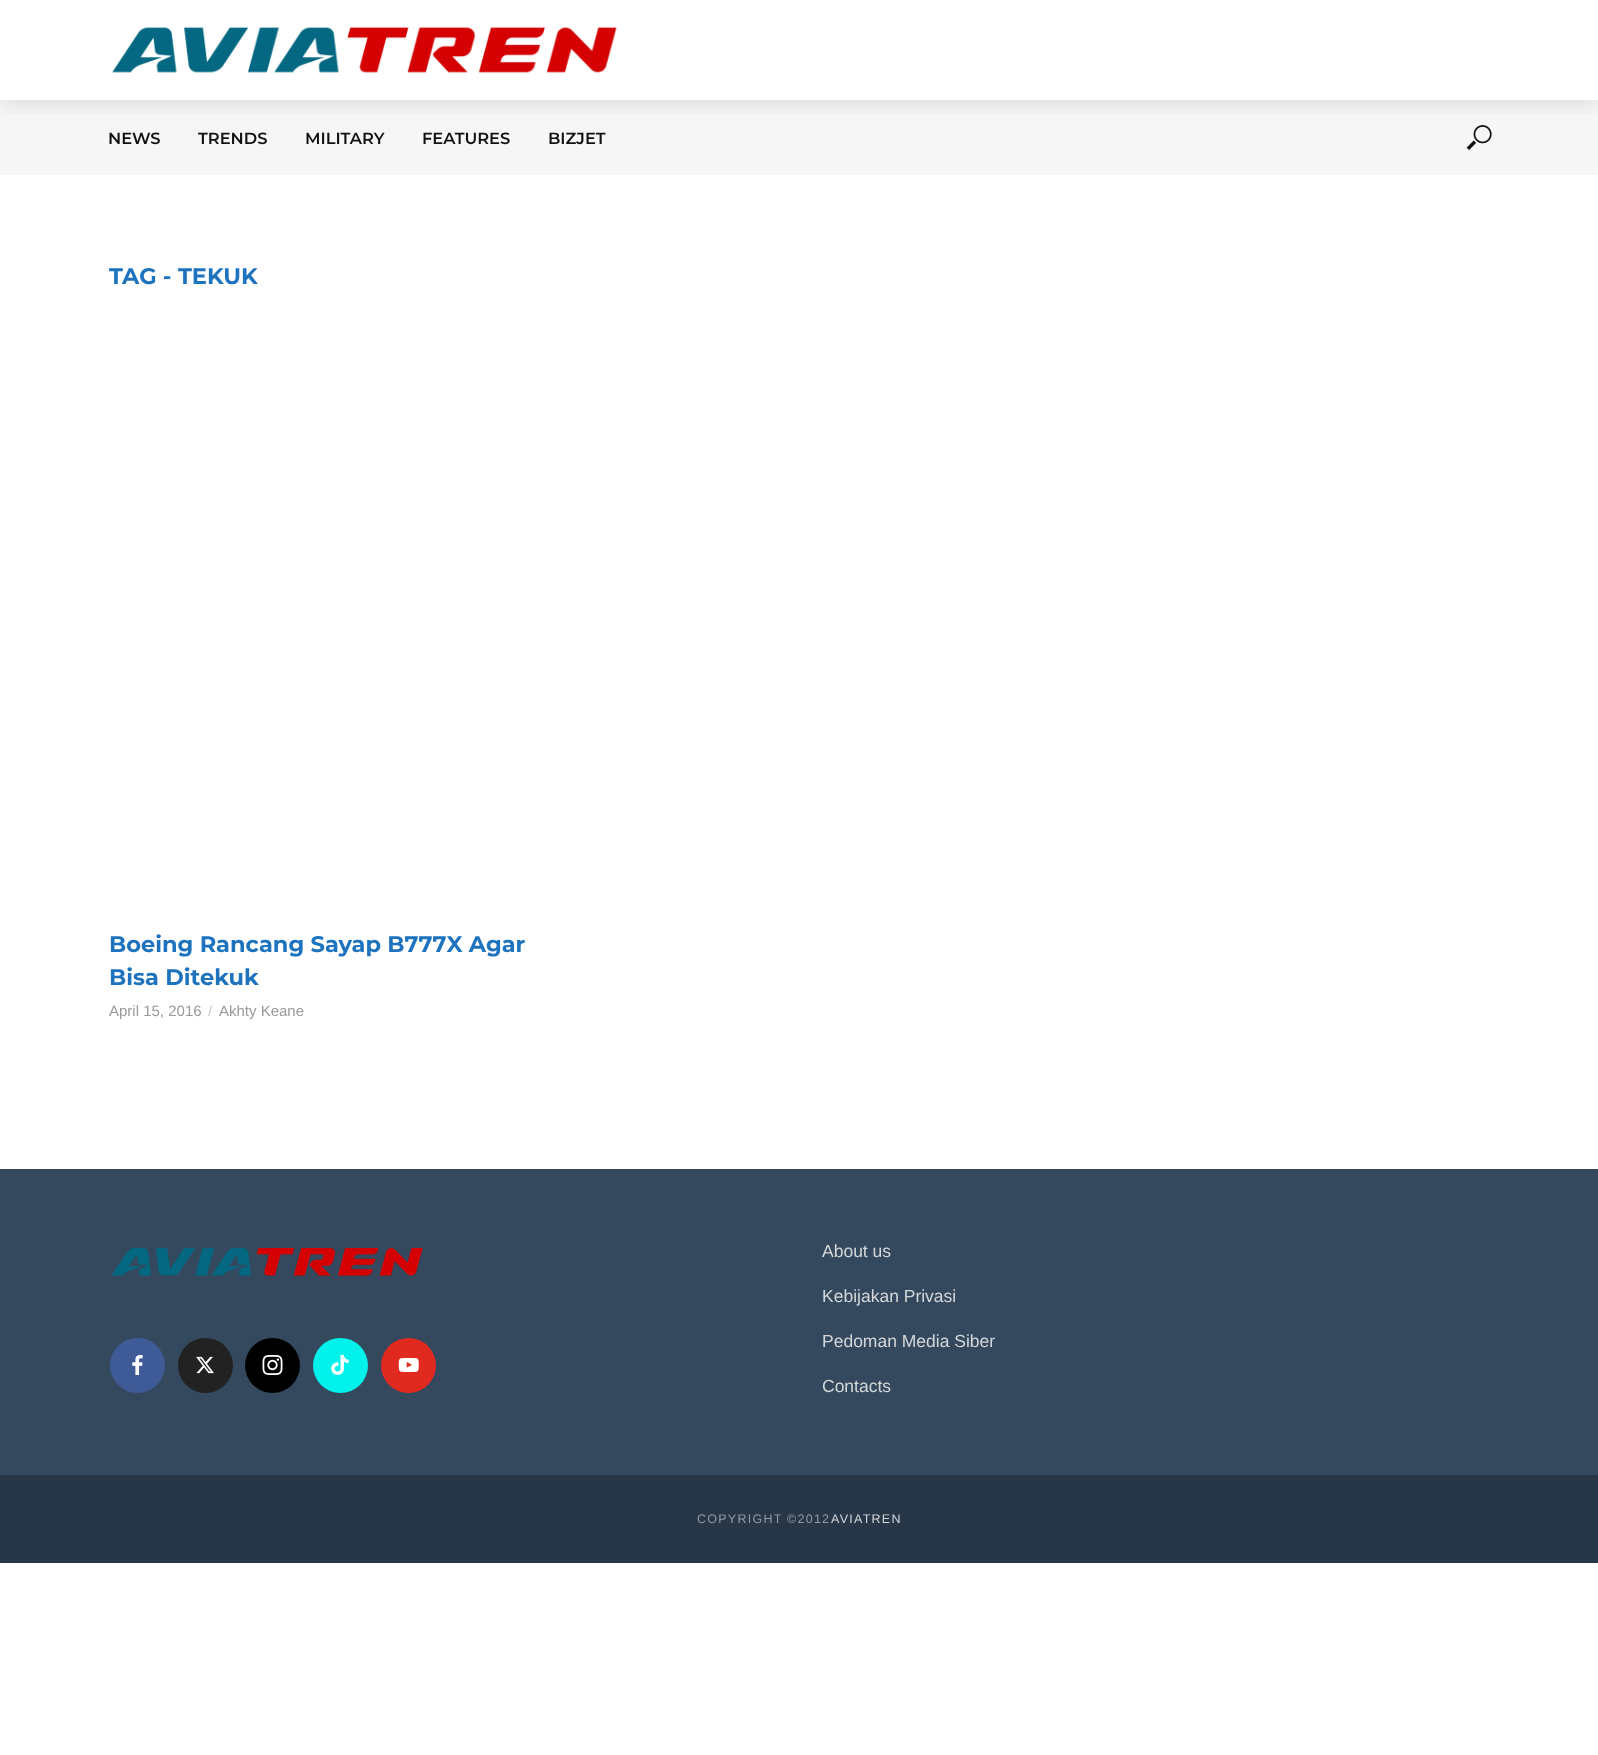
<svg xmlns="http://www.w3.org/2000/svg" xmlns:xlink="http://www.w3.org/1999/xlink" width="1598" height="1755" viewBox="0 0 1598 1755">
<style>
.cls-1{font:600 16.25px Montserrat;fill:#111111}
.cls-2{font:bold 22.5px Montserrat;fill:#1e73be}
.cls-3{font:15px Liberation Sans;fill:#999999}
.cls-4{font:15px Liberation Sans;fill:#cccccc}
.cls-5{font:17.5px Liberation Sans;fill:#d4d7da}
.cls-6{font:12.5px Liberation Sans;letter-spacing:1.25px;fill:#939ba3}
.cls-7{font:12.5px Liberation Sans;letter-spacing:1.25px;fill:#d4d7da}
</style>
<defs>
<clipPath id="clip1"><rect x="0" y="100" width="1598" height="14"/></clipPath>
</defs>
<rect width="100%" height="100%" fill="#ffffff"/>
<rect fill="#f6f6f6" x="0" y="100" width="1598" height="75"/>
<image xlink:href="image1.png" x="1466" y="125" width="26" height="25"/>
<g clip-path="url(#clip1)">
<rect fill="#000000" fill-opacity="0.15" filter="blur(12.5px)" x="0" y="0" width="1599" height="100"/>
</g>
<image xlink:href="image0.png" x="112" y="26" width="505" height="47"/>
<rect fill="#34495e" x="0" y="1169" width="1598" height="306"/>
<image xlink:href="image2.png" x="111" y="1248" width="312" height="28"/>
<circle fill="#3e5b98" cx="137.5" cy="1365.5" r="27.5"/>
<image xlink:href="image3.png" x="132" y="1355" width="11" height="20"/>
<circle fill="#222222" cx="205.5" cy="1365.5" r="27.5"/>
<image xlink:href="image4.png" x="196" y="1356" width="18" height="18"/>
<circle fill="#000000" cx="272.5" cy="1365.5" r="27.5"/>
<image xlink:href="image5.png" x="262" y="1355" width="21" height="20"/>
<circle fill="#00f2ea" cx="340.5" cy="1365.5" r="27.5"/>
<image xlink:href="image6.png" x="331" y="1355" width="18" height="20"/>
<circle fill="#e02a20" cx="408.5" cy="1365.5" r="27.5"/>
<image xlink:href="image7.png" x="398" y="1358" width="21" height="14"/>
<rect fill="#273747" x="0" y="1475" width="1598" height="88"/>
<text class="cls-1" x="108" y="144">NEWS</text>
<text class="cls-1" x="198" y="144">TRENDS</text>
<text class="cls-1" x="305" y="144">MILITARY</text>
<text class="cls-1" x="422" y="144">FEATURES</text>
<text class="cls-1" x="548" y="144">BIZJET</text>
<text class="cls-2" x="109" y="284">TAG - TEKUK</text>
<text class="cls-2"><tspan x="109" y="952">Boeing Rancang Sayap B777X Agar</tspan><tspan x="109" y="985">Bisa Ditekuk</tspan></text>
<text class="cls-3" x="109" y="1016">April 15, 2016</text>
<text class="cls-4" x="208" y="1016">/</text>
<text class="cls-3" x="219" y="1016">Akhty Keane</text>
<text class="cls-5" x="822" y="1257">About us</text>
<text class="cls-5" x="822" y="1302">Kebijakan Privasi</text>
<text class="cls-5" x="822" y="1347">Pedoman Media Siber</text>
<text class="cls-5" x="822" y="1392">Contacts</text>
<text class="cls-6" x="697" y="1523">COPYRIGHT ©2012</text>
<text class="cls-7" x="831" y="1523">AVIATREN</text>
</svg>
